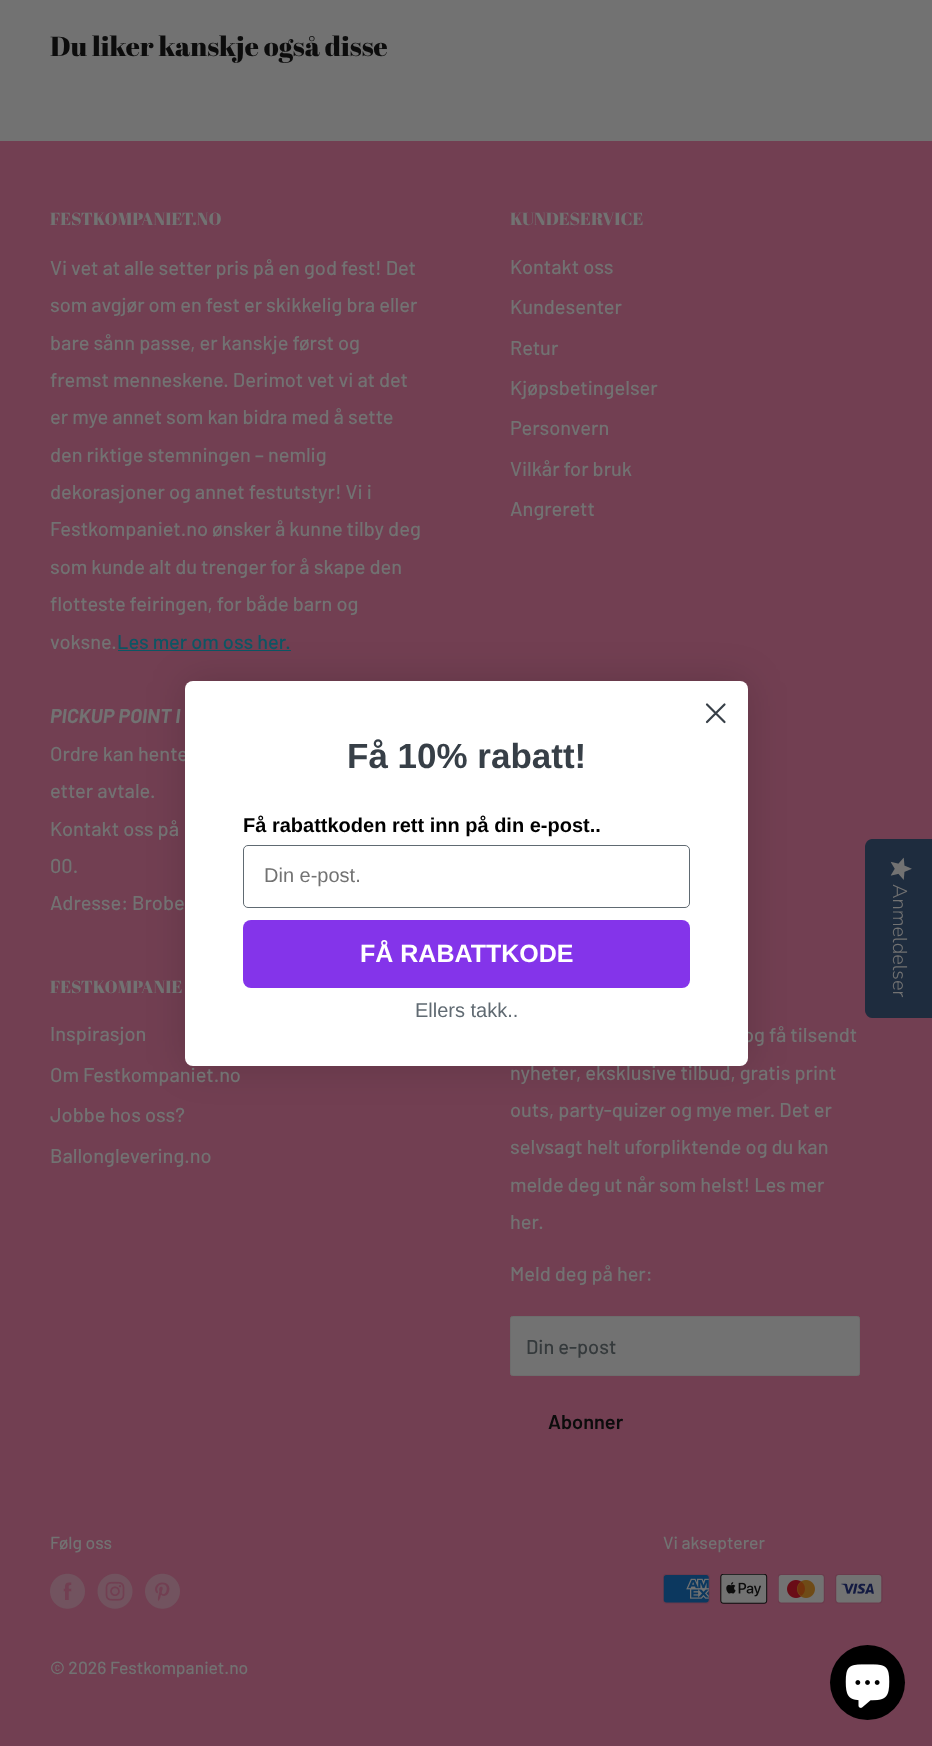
<svg xmlns="http://www.w3.org/2000/svg" xmlns:xlink="http://www.w3.org/1999/xlink" width="932" height="1746" viewBox="0 0 932 1746">
<style>
.cls-1{font:27.5px Abril Fatface;fill:#0c0c0c}
.cls-2{font:17.5px Abril Fatface;fill:#727272}
.cls-3{font:500 20px Barlow;fill:#727272}
.cls-4{font:500 20px Barlow;fill:#0c5664}
.cls-5{font:italic bold 20px Barlow;fill:#727272}
.cls-6{font:500 20px Barlow;fill:#353a3c}
.cls-7{font:600 20px Barlow;fill:#0c0c0c}
.cls-8{font:500 17.5px Barlow;fill:#727272}
.cls-9{font:bold 35px Liberation Sans;fill:#373f47}
.cls-10{font:bold 20px Liberation Sans;fill:#000000}
.cls-11{font:20px Liberation Sans;fill:#727272}
.cls-12{font:bold 25px Liberation Sans;fill:#ffffff}
.cls-13{font:20px Liberation Sans;fill:#606a72}
.cls-14{font:300 20px Nunito Sans;fill:#727272}
</style>
<rect width="100%" height="100%" fill="#727272"/>
<rect fill="#723f52" x="0" y="141" width="932" height="1605"/>
<rect fill="#0c5664" x="118" y="650" width="173" height="1"/>
<rect fill="#727272" stroke="#6d6d6d" x="510.5" y="1316.5" width="349" height="59" rx="2"/>
<image xlink:href="image0.png" x="50" y="1573" width="35" height="36"/>
<image xlink:href="image1.png" x="97" y="1573" width="36" height="36"/>
<image xlink:href="image2.png" x="145" y="1573" width="35" height="36"/>
<image xlink:href="image3.png" x="663" y="1574" width="47" height="30"/>
<image xlink:href="image4.png" x="720" y="1574" width="48" height="30"/>
<image xlink:href="image5.png" x="778" y="1574" width="47" height="30"/>
<image xlink:href="image6.png" x="835" y="1574" width="48" height="30"/>
<rect fill="#000000" fill-opacity="0.15" filter="blur(19px)" x="185" y="681" width="563" height="385" rx="8"/>
<path fill="#1e2c3e" d="M932 839V1018H872C868 1018 865 1014 865 1010V847C865 843 868 839 872 839Z"/>
<image xlink:href="image7.png" x="890" y="857" width="22" height="23"/>
<circle fill="#000000" cx="867.5" cy="1682.5" r="37.5"/>
<image xlink:href="image8.png" x="845" y="1664" width="45" height="44"/>
<text class="cls-1" x="50" y="56">Du liker kanskje også disse</text>
<text class="cls-2" x="50" y="225">FESTKOMPANIET.NO</text>
<text class="cls-3"><tspan x="50" y="275">Vi vet at alle setter pris på en god fest! Det</tspan><tspan x="50" y="312">som avgjør om en fest er skikkelig bra eller</tspan><tspan x="50" y="350">bare sånn passe, er kanskje først og</tspan><tspan x="50" y="387">fremst menneskene. Derimot vet vi at det</tspan><tspan x="50" y="424">er mye annet som kan bidra med å sette</tspan><tspan x="50" y="462">den riktige stemningen – nemlig</tspan><tspan x="50" y="499">dekorasjoner og annet festutstyr! Vi i</tspan><tspan x="50" y="536">Festkompaniet.no ønsker å kunne tilby deg</tspan><tspan x="50" y="574">som kunde alt du trenger for å skape den</tspan><tspan x="50" y="611">flotteste feiringen, for både barn og</tspan><tspan x="50" y="649">voksne.</tspan></text>
<text class="cls-4" x="117" y="649">Les mer om oss her.</text>
<text class="cls-5" x="50" y="723">PICKUP POINT I</text>
<text class="cls-3"><tspan x="50" y="761">Ordre kan hente</tspan><tspan x="50" y="798">etter avtale.</tspan><tspan x="50" y="836">Kontakt oss på</tspan><tspan x="50" y="873">00.</tspan><tspan x="50" y="910">Adresse: Brobe</tspan></text>
<text class="cls-2" x="510" y="225">KUNDESERVICE</text>
<text class="cls-3" x="510" y="274">Kontakt oss</text>
<text class="cls-3" x="510" y="314">Kundesenter</text>
<text class="cls-3" x="510" y="355">Retur</text>
<text class="cls-3" x="510" y="395">Kjøpsbetingelser</text>
<text class="cls-3" x="510" y="435">Personvern</text>
<text class="cls-3" x="510" y="476">Vilkår for bruk</text>
<text class="cls-3" x="510" y="516">Angrerett</text>
<text class="cls-2" x="50" y="993">FESTKOMPANIE</text>
<text class="cls-3" x="50" y="1041">Inspirasjon</text>
<text class="cls-3" x="50" y="1082">Om Festkompaniet.no</text>
<text class="cls-3" x="50" y="1122">Jobbe hos oss?</text>
<text class="cls-3" x="50" y="1163">Ballonglevering.no</text>
<text class="cls-3" x="743" y="1042">og få tilsendt</text>
<text class="cls-3"><tspan x="510" y="1080">nyheter, eksklusive tilbud, gratis print</tspan><tspan x="510" y="1117">outs, party-quizer og mye mer. Det er</tspan><tspan x="510" y="1154">selvsagt helt uforpliktende og du kan</tspan><tspan x="510" y="1192">melde deg ut når som helst! Les mer</tspan><tspan x="510" y="1229">her.</tspan></text>
<text class="cls-3" x="510" y="1281">Meld deg på her:</text>
<text class="cls-6" x="526" y="1354">Din e-post</text>
<text class="cls-7" x="548" y="1429">Abonner</text>
<text class="cls-8" x="50" y="1549">Følg oss</text>
<text class="cls-8" x="663" y="1549">Vi aksepterer</text>
<text class="cls-8" x="50" y="1674">© 2026 Festkompaniet.no</text>
<rect fill="#ffffff" x="185" y="681" width="563" height="385" rx="8"/>
<path fill="none" stroke="#373f47" stroke-width="2.2" stroke-linecap="round" stroke-linejoin="round" d="M707 704.5L724.5 722M707 722L724.5 704.5Z"/>
<text class="cls-9" x="347" y="768">Få 10% rabatt!</text>
<text class="cls-10" x="243" y="832">Få rabattkoden rett inn på din e-post..</text>
<rect fill="none" stroke="#606a72" x="243.5" y="845.5" width="446" height="62" rx="4.5"/>
<text class="cls-11" x="264" y="882">Din e-post.</text>
<rect fill="#8434ea" x="243" y="920" width="447" height="68" rx="8"/>
<text class="cls-12" x="360" y="962">FÅ RABATTKODE</text>
<text class="cls-13" x="415" y="1017">Ellers takk..</text>
<text class="cls-14" x="893" y="884" transform="rotate(90 893 884)">Anmeldelser</text>
</svg>
